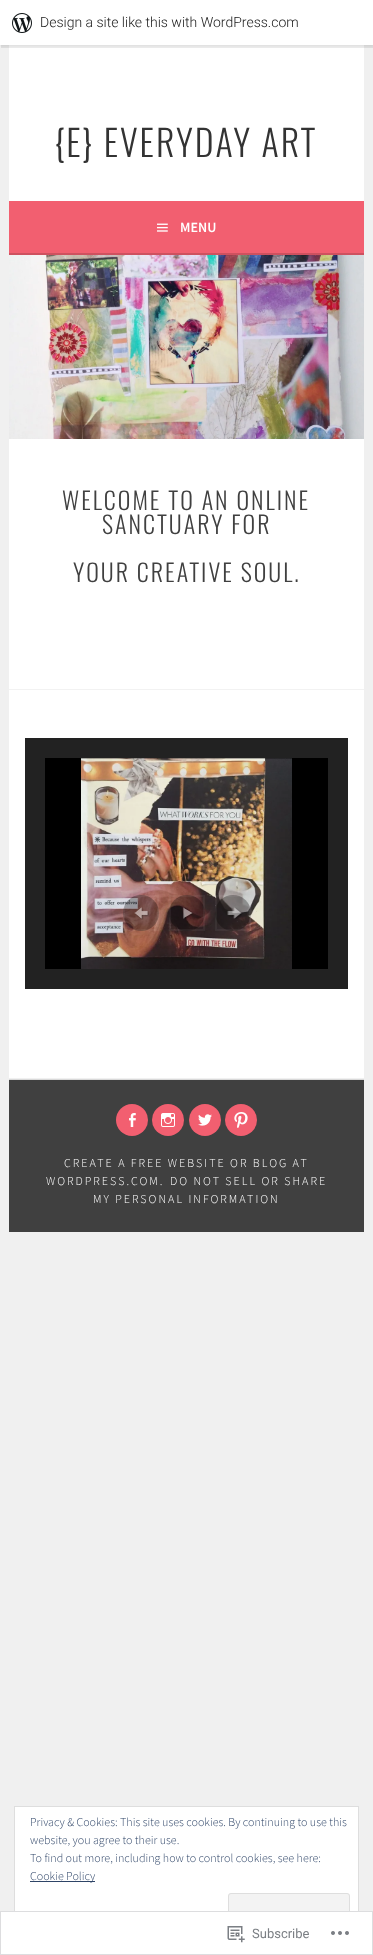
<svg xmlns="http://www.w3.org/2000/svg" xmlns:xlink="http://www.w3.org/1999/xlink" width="373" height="1955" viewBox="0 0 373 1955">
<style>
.cls-1{font:300 14px Roboto;fill:#171717}
.cls-2{font:300 36px Oswald;letter-spacing:2px;fill:#333333}
.cls-3{font:600 14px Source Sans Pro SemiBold;fill:#ffffff}
.cls-4{font:300 24px Oswald;letter-spacing:2px;fill:#404040}
.cls-5{font:300 12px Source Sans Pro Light;letter-spacing:2px;fill:#ffffff}
.cls-6{font:300 12px Source Sans Pro Light;fill:#2e4467}
.cls-7{font:13px Roboto;fill:#7b7f84}
</style>
<rect width="100%" height="100%" fill="#f0f0f0"/>
<rect fill="#ffffff" x="9" y="45" width="355" height="156"/>
<rect fill="#000000" fill-opacity="0.05" filter="blur(1px)" x="0" y="1" width="373" height="45"/>
<path fill="#000000" fill-opacity="0.08" d="M1 45V48H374V3H373V45Z"/>
<rect fill="#ffffff" x="0" y="0" width="373" height="45"/>
<image xlink:href="image0.png" x="12" y="13" width="20" height="20"/>
<rect fill="#f25f70" x="9" y="201" width="355" height="52"/>
<rect fill="#ce515f" x="9" y="253" width="355" height="2"/>
<image xlink:href="image1.png" x="157" y="223" width="11" height="9"/>
<rect fill="#ffffff" x="9" y="439" width="355" height="639"/>
<image xlink:href="image2.png" x="9" y="255" width="355" height="184"/>
<rect fill="#f2f2f2" x="9" y="689" width="355" height="1"/>
<rect fill="none" stroke="#222222" stroke-width="20" x="35" y="748" width="303" height="231"/>
<rect fill="#000000" x="45" y="758" width="283" height="211"/>
<image xlink:href="image3.png" x="81" y="758" width="211" height="211"/>
<circle fill="#000000" fill-opacity="0.3" cx="141" cy="913" r="18"/>
<image xlink:href="image4.png" x="134" y="907" width="16" height="13"/>
<rect fill="none" stroke="#ffffff" stroke-opacity="0.05" stroke-width="2" x="124" y="896" width="34" height="34"/>
<circle fill="#000000" fill-opacity="0.3" cx="187" cy="913" r="18"/>
<image xlink:href="image5.png" x="183" y="907" width="10" height="12"/>
<rect fill="none" stroke="#ffffff" stroke-opacity="0.05" stroke-width="2" x="170" y="896" width="34" height="34"/>
<circle fill="#000000" fill-opacity="0.3" cx="233" cy="913" r="18"/>
<image xlink:href="image6.png" x="227" y="907" width="15" height="12"/>
<rect fill="none" stroke="#ffffff" stroke-opacity="0.05" stroke-width="2" x="216" y="896" width="34" height="34"/>
<rect fill="#404040" x="9" y="1080" width="355" height="152"/>
<rect fill="#d9d9d9" x="9" y="1079" width="355" height="1"/>
<circle fill="#f25f70" cx="132" cy="1120" r="16"/>
<image xlink:href="image7.png" x="129" y="1113" width="7" height="14"/>
<circle fill="#f25f70" cx="168" cy="1120" r="16"/>
<image xlink:href="image8.png" x="161" y="1113" width="14" height="14"/>
<circle fill="#f25f70" cx="205" cy="1120" r="16"/>
<image xlink:href="image9.png" x="198" y="1114" width="14" height="12"/>
<circle fill="#f25f70" cx="241" cy="1120" r="16"/>
<image xlink:href="image10.png" x="234" y="1112" width="14" height="16"/>
<rect fill="#ffffff" stroke="#dedede" x="14.5" y="1806.5" width="344" height="134"/>
<rect fill="#2e4467" x="30" y="1881" width="65" height="1"/>
<rect fill="#f3f3f3" x="228" y="1893" width="122" height="39" rx="3"/>
<path fill="#dbdbdb" d="M229 1927V1929C229 1930 230 1931 231 1931H347C348 1931 349 1930 349 1929V1927C349 1928 348 1929 347 1929H231L229 1928Z"/>
<rect fill="none" stroke="#dedede" x="228.5" y="1893.5" width="121" height="38" rx="2.5"/>
<rect fill="#ffffff" fill-opacity="0.98" x="0" y="1911" width="373" height="44"/>
<rect fill="none" stroke="#dcdcde" stroke-opacity="0.98" x="0.5" y="1911.5" width="372" height="43"/>
<image xlink:href="image11.png" x="227" y="1926" width="18" height="17"/>
<image xlink:href="image12.png" x="331" y="1931" width="18" height="4"/>
<text class="cls-1" x="40" y="27">Design a site like this with WordPress.com</text>
<text class="cls-2" x="55" y="157">{E} EVERYDAY ART</text>
<text class="cls-3" x="180" y="232">MENU</text>
<text class="cls-4" x="62" y="510">WELCOME TO AN ONLINE</text>
<text class="cls-4" x="102" y="534">SANCTUARY FOR</text>
<text class="cls-4" x="73" y="582">YOUR CREATIVE SOUL.</text>
<text class="cls-5" x="64" y="1167">CREATE A FREE WEBSITE OR BLOG AT</text>
<text class="cls-5" x="46" y="1185">WORDPRESS.COM.</text>
<text class="cls-5" x="170" y="1185">DO NOT SELL OR SHARE</text>
<text class="cls-5" x="93" y="1203">MY PERSONAL INFORMATION</text>
<text class="cls-6"><tspan x="30" y="1826">Privacy &amp; Cookies: This site uses cookies. By continuing to use this</tspan><tspan x="30" y="1844">website, you agree to their use.</tspan><tspan x="30" y="1862">To find out more, including how to control cookies, see here:</tspan><tspan x="30" y="1880">Cookie Policy</tspan></text>
<text class="cls-7" x="252" y="1938">Subscribe</text>
</svg>
